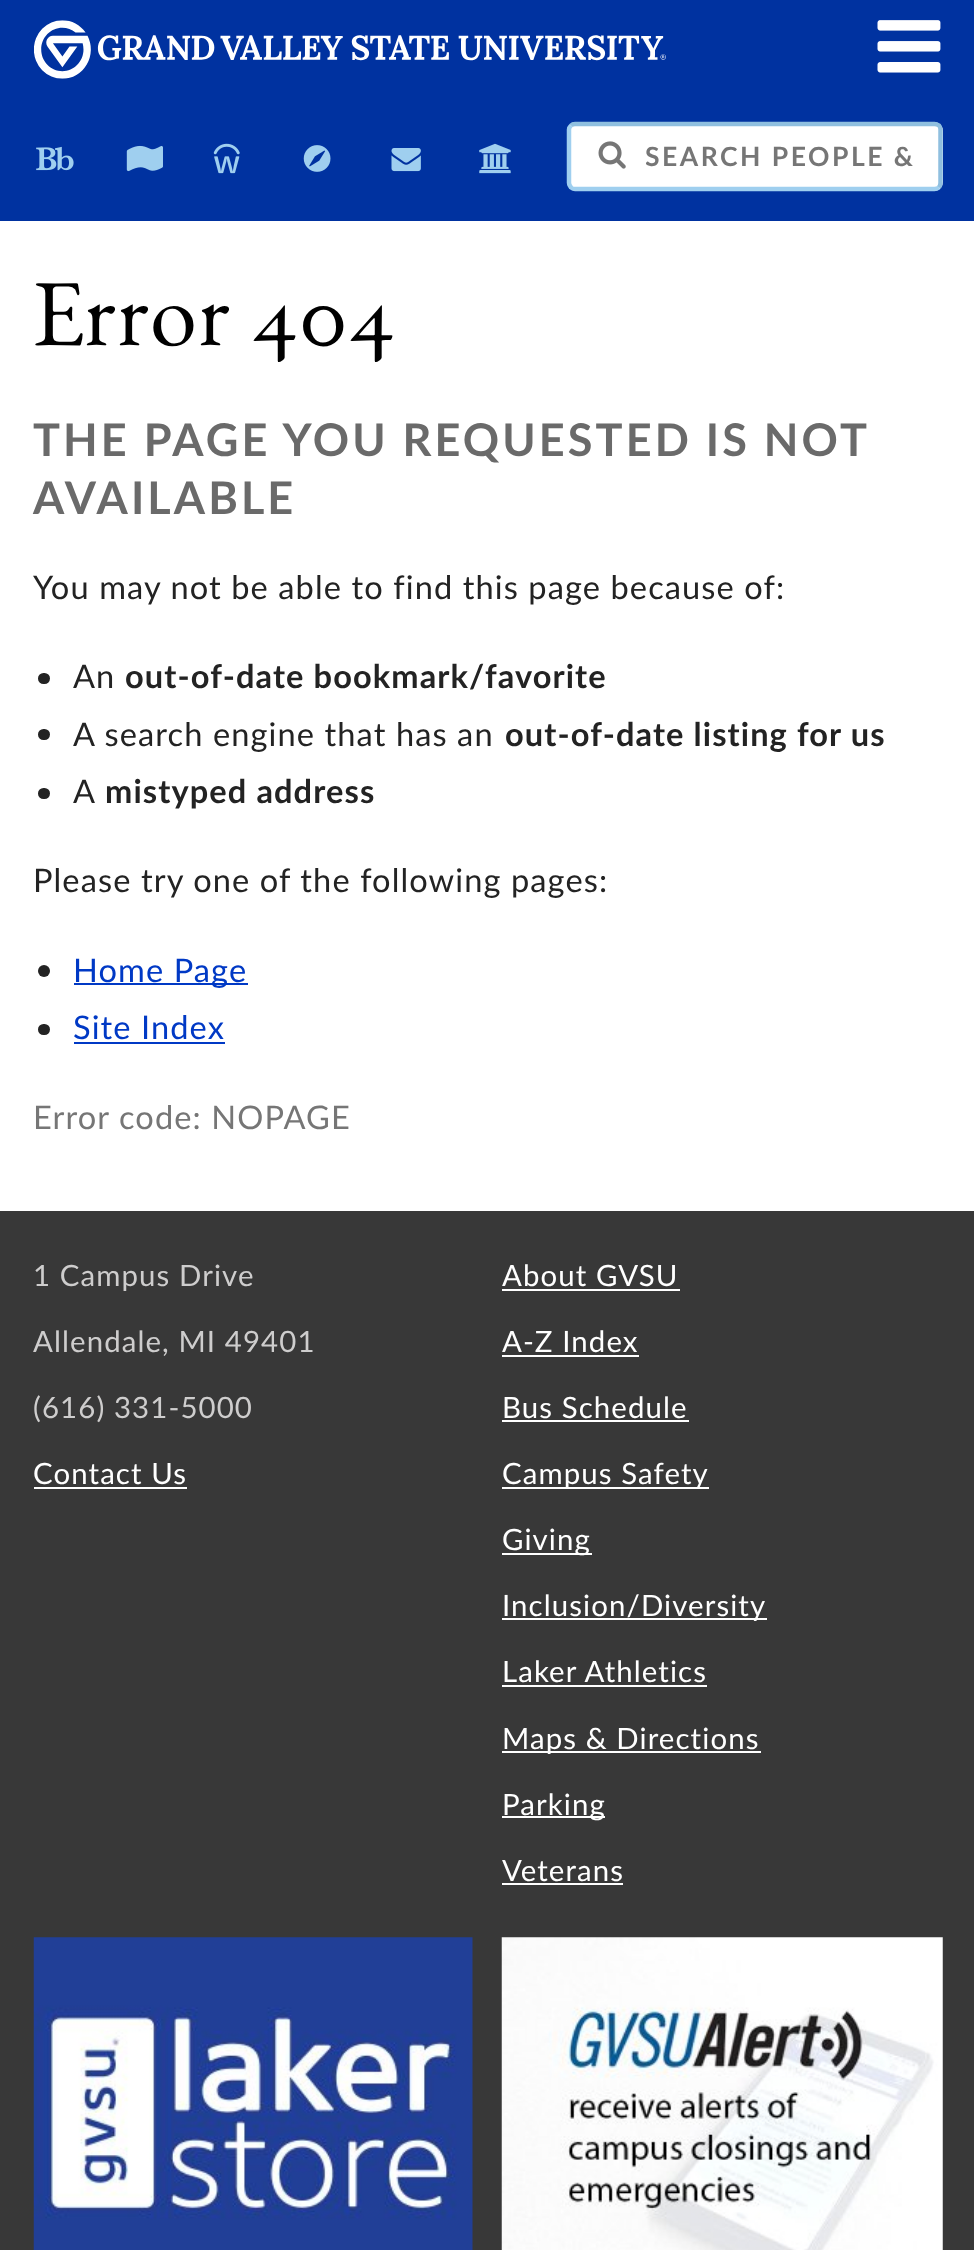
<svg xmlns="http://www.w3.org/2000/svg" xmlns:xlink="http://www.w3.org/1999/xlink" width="974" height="2250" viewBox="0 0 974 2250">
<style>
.cls-1{font:bold 26.5px Lato;letter-spacing:2.5px;fill:#767676}
.cls-2{font:94.5px EB Garamond;letter-spacing:1.4px;fill:#000000}
.cls-3{font:bold 45px Lato;letter-spacing:3.1px;fill:#6a6a6a}
.cls-4{font:32.6px Lato;letter-spacing:1.1px;fill:#232323}
.cls-5{font:bold 32.6px Lato;letter-spacing:1.1px;fill:#232323}
.cls-6{font:32.6px Lato;letter-spacing:1.1px;fill:#0039c5}
.cls-7{font:32.6px Lato;letter-spacing:1.1px;fill:#767676}
.cls-8{font:29.4px Lato;letter-spacing:1.1px;fill:#cecdcd}
.cls-9{font:29.4px Lato;letter-spacing:1.1px;fill:#ffffff}
</style>
<defs>
<clipPath id="clip1"><rect x="646" y="140" width="277" height="33"/></clipPath>
</defs>
<rect width="100%" height="100%" fill="#ffffff"/>
<rect fill="#0032a0" x="0" y="0" width="974" height="221"/>
<image xlink:href="image0.png" x="34" y="20" width="632" height="59"/>
<image xlink:href="image1.png" x="877" y="20" width="64" height="53"/>
<image xlink:href="image2.png" x="36" y="146" width="38" height="25"/>
<image xlink:href="image3.png" x="126" y="145" width="37" height="27"/>
<image xlink:href="image4.png" x="213" y="143" width="27" height="31"/>
<image xlink:href="image5.png" x="303" y="145" width="28" height="27"/>
<image xlink:href="image6.png" x="391" y="148" width="30" height="24"/>
<image xlink:href="image7.png" x="479" y="143" width="32" height="31"/>
<rect fill="#ffffff" x="567" y="122" width="376" height="69" rx="9"/>
<path fill="none" stroke="#8fbfdf" stroke-width="4.5" d="M571 125.5C572 124.5 573.5 124 575 124H934.5C936 124 937.5 124.5 939 125.5C940 126.5 940.5 128 940.5 129.5V183C940.5 184.5 940 186 939 187.5"/>
<path fill="none" stroke="#9fcfef" stroke-width="4.5" d="M939 187.5C937.5 188.5 936 189 934.5 189H575C573.5 189 572 188.5 571 187.5C570 186 569 184.5 569 183V129.5C569 128 570 126.5 571 125.5"/>
<image xlink:href="image8.png" x="598" y="141" width="28" height="28"/>
<rect fill="#232323" x="38" y="673" width="12" height="11" rx="5.5"/>
<rect fill="#232323" x="38" y="729" width="12" height="11" rx="5.5"/>
<rect fill="#232323" x="38" y="788" width="12" height="11" rx="5.5"/>
<circle fill="#232323" cx="44" cy="971" r="6"/>
<rect fill="#0039c5" x="74" y="983" width="174" height="2"/>
<rect fill="#232323" x="38" y="1024" width="12" height="11" rx="5.5"/>
<rect fill="#0039c5" x="74" y="1042" width="151" height="2"/>
<rect fill="#383838" x="0" y="1211" width="974" height="1039"/>
<rect fill="#ffffff" x="34" y="1487" width="153" height="2"/>
<rect fill="#ffffff" x="502" y="1289" width="178" height="2"/>
<rect fill="#ffffff" x="502" y="1355" width="137" height="2"/>
<rect fill="#ffffff" x="502" y="1420" width="187" height="2"/>
<rect fill="#ffffff" x="502" y="1487" width="207" height="2"/>
<rect fill="#ffffff" x="502" y="1553" width="90" height="2"/>
<rect fill="#ffffff" x="502" y="1618" width="265" height="2"/>
<rect fill="#ffffff" x="502" y="1685" width="205" height="2"/>
<rect fill="#ffffff" x="502" y="1751" width="259" height="2"/>
<rect fill="#ffffff" x="502" y="1816" width="103" height="2"/>
<rect fill="#ffffff" x="502" y="1883" width="121" height="2"/>
<image xlink:href="image9.png" x="33" y="1937" width="440" height="313"/>
<image xlink:href="image10.png" x="501" y="1937" width="442" height="313"/>
<g clip-path="url(#clip1)">
<text class="cls-1" x="645" y="166">SEARCH PEOPLE &amp;</text>
</g>
<text class="cls-2" x="33" y="345">Error 404</text>
<text class="cls-3"><tspan x="33" y="456" word-spacing="-0.25">THE PAGE YOU REQUESTED IS NOT</tspan><tspan x="33" y="514">AVAILABLE</tspan></text>
<text class="cls-4" x="33" y="599">You may not be able to find this page because of:</text>
<text class="cls-4" x="73" y="688">An</text>
<text class="cls-5" x="125" y="688">out-of-date bookmark/favorite</text>
<text class="cls-4" x="73" y="746">A search engine that has an</text>
<text class="cls-5" x="505" y="746">out-of-date listing for us</text>
<text class="cls-4" x="73" y="803">A</text>
<text class="cls-5" x="105" y="803">mistyped address</text>
<text class="cls-4" x="33" y="892">Please try one of the following pages:</text>
<text class="cls-6"><tspan x="73" y="982">Home Page</tspan><tspan x="73" y="1039">Site Index</tspan></text>
<text class="cls-7" x="33" y="1129">Error code: NOPAGE</text>
<text class="cls-8" x="33" y="1286">1 Campus Drive</text>
<text class="cls-8" x="33" y="1352">Allendale, MI 49401</text>
<text class="cls-8" x="33" y="1418">(616) 331-5000</text>
<text class="cls-9" x="33" y="1484">Contact Us</text>
<text class="cls-9" x="502" y="1286">About GVSU</text>
<text class="cls-9" x="502" y="1352">A-Z Index</text>
<text class="cls-9" x="502" y="1418">Bus Schedule</text>
<text class="cls-9" x="502" y="1484">Campus Safety</text>
<text class="cls-9" x="502" y="1550">Giving</text>
<text class="cls-9" x="502" y="1616">Inclusion/Diversity</text>
<text class="cls-9" x="502" y="1682">Laker Athletics</text>
<text class="cls-9" x="502" y="1749">Maps &amp; Directions</text>
<text class="cls-9" x="502" y="1815">Parking</text>
<text class="cls-9" x="502" y="1881">Veterans</text>
</svg>
